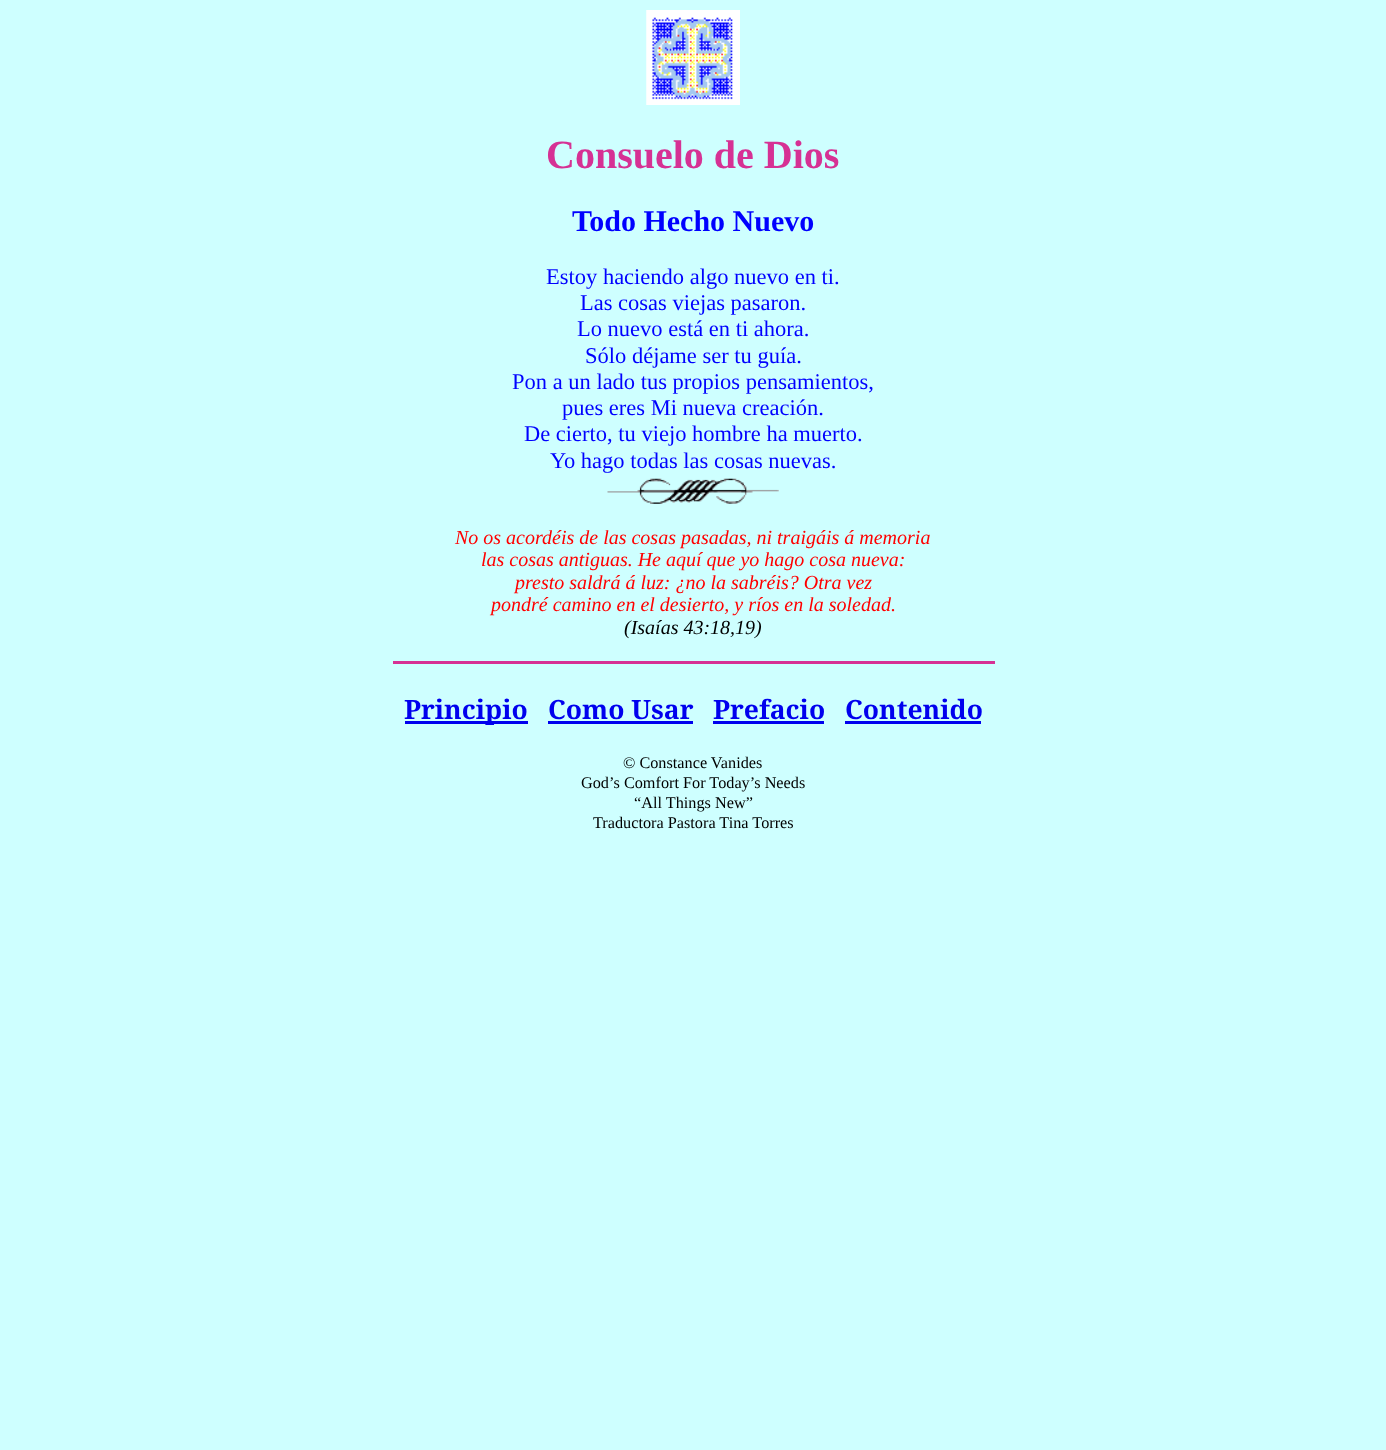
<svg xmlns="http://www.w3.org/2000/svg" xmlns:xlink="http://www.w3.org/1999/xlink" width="1386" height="1450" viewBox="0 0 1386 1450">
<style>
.cls-1{font:bold 40px Liberation Serif;fill:#d63194}
.cls-2{font:bold 30px Liberation Serif;fill:#0000ff}
.cls-3{font:22.5px Liberation Serif;fill:#0000ff}
.cls-4{font:italic 20px Liberation Serif;fill:#ff0000}
.cls-5{font:italic 20px Liberation Serif;fill:#000000}
.cls-6{font:bold 26.5px Noto Serif;fill:#0000ee}
.cls-7{font:16.25px Liberation Serif;fill:#000000}
</style>
<rect width="100%" height="100%" fill="#ceffff"/>
<image xlink:href="image0.png" x="646" y="10" width="94" height="95"/>
<image xlink:href="image1.png" x="607" y="478" width="172" height="26"/>
<rect fill="#d63194" x="393" y="661" width="602" height="3"/>
<rect fill="#0000ee" x="405" y="721" width="123" height="3"/>
<rect fill="#0000ee" x="548" y="721" width="145" height="3"/>
<rect fill="#0000ee" x="713" y="721" width="111" height="3"/>
<rect fill="#0000ee" x="845" y="721" width="136" height="3"/>
<text class="cls-1" x="546" y="168">Consuelo de Dios</text>
<text class="cls-2" x="572" y="231">Todo Hecho Nuevo</text>
<text class="cls-3" x="546" y="284">Estoy haciendo algo nuevo en ti.</text>
<text class="cls-3" x="580" y="310">Las cosas viejas pasaron.</text>
<text class="cls-3" x="577" y="336">Lo nuevo está en ti ahora.</text>
<text class="cls-3" x="585" y="363">Sólo déjame ser tu guía.</text>
<text class="cls-3" x="512" y="389">Pon a un lado tus propios pensamientos,</text>
<text class="cls-3" x="562" y="415">pues eres Mi nueva creación.</text>
<text class="cls-3" x="524" y="441">De cierto, tu viejo hombre ha muerto.</text>
<text class="cls-3" x="550" y="468">Yo hago todas las cosas nuevas.</text>
<text class="cls-4" x="455" y="544">No os acordéis de las cosas pasadas, ni traigáis á memoria</text>
<text class="cls-4" x="481" y="566">las cosas antiguas. He aquí que yo hago cosa nueva:</text>
<text class="cls-4" x="515" y="589">presto saldrá á luz: ¿no la sabréis? Otra vez</text>
<text class="cls-4" x="491" y="611">pondré camino en el desierto, y ríos en la soledad.</text>
<text class="cls-5" x="624" y="634">(Isaías 43:18,19)</text>
<text class="cls-6" x="404" y="719">Principio</text>
<text class="cls-6" x="548" y="719">Como Usar</text>
<text class="cls-6" x="713" y="719">Prefacio</text>
<text class="cls-6" x="845" y="719">Contenido</text>
<text class="cls-7" x="623" y="768">© Constance Vanides</text>
<text class="cls-7" x="581" y="788">God’s Comfort For Today’s Needs</text>
<text class="cls-7" x="634" y="808">“All Things New”</text>
<text class="cls-7" x="593" y="828">Traductora Pastora Tina Torres</text>
</svg>
